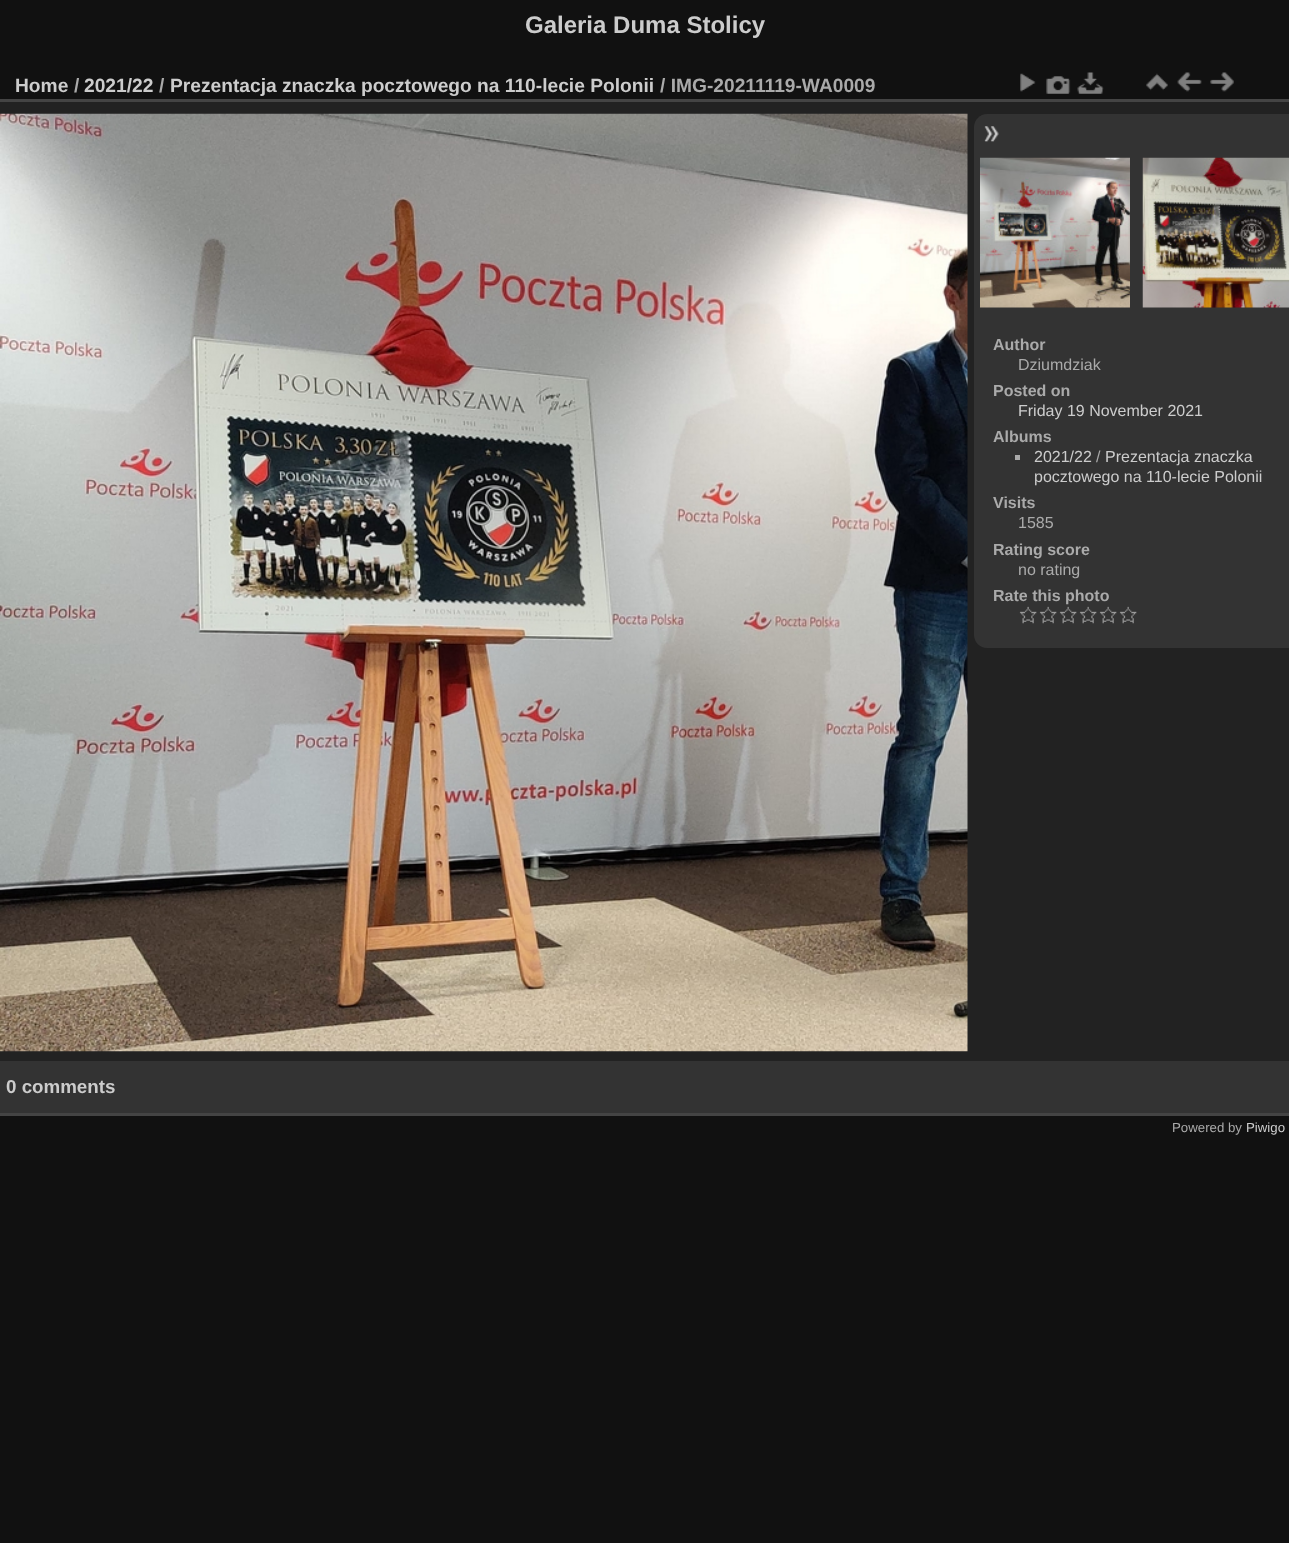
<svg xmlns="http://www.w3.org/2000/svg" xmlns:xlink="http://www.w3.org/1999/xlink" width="1289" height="1543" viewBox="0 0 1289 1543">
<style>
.cls-1{font:bold 24px Liberation Sans;fill:#cccccc}
.cls-2{font:bold 19.2px Liberation Sans;fill:#cccccc}
.cls-3{font:bold 19.2px Liberation Sans;fill:#aaaaaa}
.cls-4{font:bold 16px Liberation Sans;fill:#aaaaaa}
.cls-5{font:16px Liberation Sans;fill:#aaaaaa}
.cls-6{font:16px Liberation Sans;fill:#cccccc}
.cls-7{font:bold 18.75px Liberation Sans;fill:#cccccc}
.cls-8{font:13.25px Liberation Sans;fill:#aaaaaa}
.cls-9{font:13.25px Liberation Sans;fill:#cccccc}
</style>
<rect width="100%" height="100%" fill="#111111"/>
<rect fill="#222222" x="0" y="102" width="1289" height="959"/>
<rect fill="#444444" x="0" y="1113" width="1289" height="3"/>
<rect fill="#444444" x="0" y="99" width="1289" height="3"/>
<image xlink:href="image0.png" x="1020" y="73" width="16" height="19"/>
<image xlink:href="image1.png" x="1046" y="76" width="25" height="18"/>
<image xlink:href="image2.png" x="1077" y="72" width="27" height="22"/>
<image xlink:href="image3.png" x="1146" y="73" width="22" height="18"/>
<image xlink:href="image4.png" x="1177" y="72" width="25" height="20"/>
<image xlink:href="image5.png" x="1210" y="72" width="24" height="20"/>
<image xlink:href="image6.png" x="0" y="113" width="968" height="939"/>
<path fill="#333333" d="M987 114H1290V648H987C980 648 974 642 974 635V127C974 120 980 114 987 114Z"/>
<image xlink:href="image7.png" x="984" y="126" width="15" height="16"/>
<image xlink:href="image8.png" x="980" y="157" width="150" height="151"/>
<image xlink:href="image9.png" x="1142" y="157" width="147" height="151"/>
<rect fill="#aaaaaa" x="1015" y="455" width="5" height="5"/>
<image xlink:href="image10.png" x="1019" y="606" width="18" height="18"/>
<image xlink:href="image11.png" x="1039" y="606" width="18" height="18"/>
<image xlink:href="image11.png" x="1059" y="606" width="18" height="18"/>
<image xlink:href="image11.png" x="1079" y="606" width="18" height="18"/>
<image xlink:href="image11.png" x="1099" y="606" width="18" height="18"/>
<image xlink:href="image11.png" x="1119" y="606" width="18" height="18"/>
<rect fill="#333333" x="0" y="1061" width="1289" height="52"/>
<text class="cls-1" x="525" y="33">Galeria Duma Stolicy</text>
<text class="cls-2" x="15" y="92">Home</text>
<text class="cls-3" x="74" y="92">/</text>
<text class="cls-2" x="84" y="92">2021/22</text>
<text class="cls-3" x="159" y="92">/</text>
<text class="cls-2" x="170" y="92">Prezentacja znaczka pocztowego na 110-lecie Polonii</text>
<text class="cls-3" x="660" y="92">/ IMG-20211119-WA0009</text>
<text class="cls-4" x="993" y="350">Author</text>
<text class="cls-5" x="1018" y="370">Dziumdziak</text>
<text class="cls-4" x="993" y="396">Posted on</text>
<text class="cls-6" x="1018" y="416">Friday 19 November 2021</text>
<text class="cls-4" x="993" y="442">Albums</text>
<text class="cls-6" x="1034" y="462">2021/22</text>
<text class="cls-5" x="1096" y="462">/</text>
<text class="cls-6" x="1105" y="462">Prezentacja znaczka</text>
<text class="cls-6" x="1034" y="482">pocztowego na 110-lecie Polonii</text>
<text class="cls-4" x="993" y="508">Visits</text>
<text class="cls-5" x="1018" y="528">1585</text>
<text class="cls-4" x="993" y="555">Rating score</text>
<text class="cls-5" x="1018" y="575">no rating</text>
<text class="cls-4" x="993" y="601">Rate this photo</text>
<text class="cls-7" x="6" y="1093">0 comments</text>
<text class="cls-8" x="1172" y="1132">Powered by</text>
<text class="cls-9" x="1246" y="1132">Piwigo</text>
</svg>
